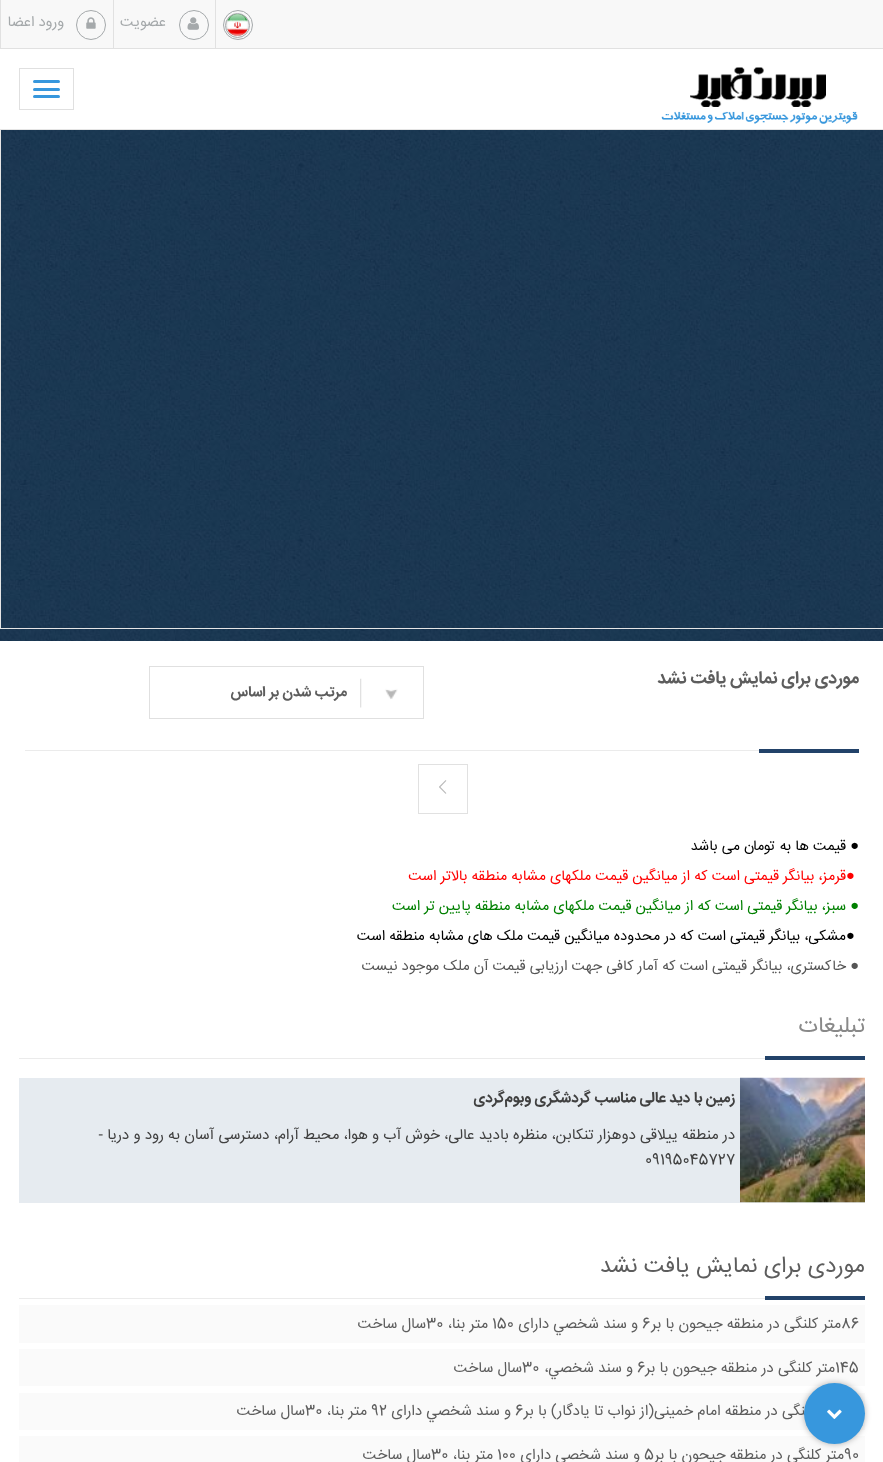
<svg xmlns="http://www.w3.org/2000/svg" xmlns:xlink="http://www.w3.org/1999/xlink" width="883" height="1462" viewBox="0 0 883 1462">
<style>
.cls-1{font:14.6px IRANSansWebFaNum;direction:rtl;fill:#a5a9ab}
.cls-2{font:bold 17.5px IRANSansWebFaNum;direction:rtl;fill:#5d5d5d}
.cls-3{font:bold 14.6px IRANSansWebFaNum;direction:rtl;fill:#5d5d5d}
.cls-4{font:14.6px Liberation Sans;direction:rtl;fill:#000000}
.cls-5{font:14.6px IRANSansWebFaNum;direction:rtl;fill:#000000}
.cls-6{font:14.6px Liberation Sans;fill:#ff0000}
.cls-7{font:14.6px IRANSansWebFaNum;direction:rtl;fill:#ff0000}
.cls-8{font:14.6px Liberation Sans;direction:rtl;fill:#008000}
.cls-9{font:14.6px IRANSansWebFaNum;direction:rtl;fill:#008000}
.cls-10{font:14.6px Liberation Sans;fill:#000000}
.cls-11{font:14.6px Liberation Sans;direction:rtl;fill:#555555}
.cls-12{font:14.6px IRANSansWebFaNum;direction:rtl;fill:#555555}
.cls-13{font:22.5px IRANSansWebFaNum;direction:rtl;fill:#898989}
.cls-14{font:bold 15px IRANSansWebFaNum;direction:rtl;fill:#404040}
.cls-15{font:15px IRANSansWebFaNum;direction:rtl;fill:#404040}
.cls-16{font:15px IRANSansWebFaNum;fill:#404040}
.cls-17{font:22.5px IRANSansWebFaNum;direction:rtl;fill:#5d5d5d}
.cls-18{font:15px IRANSansWebFaNum;fill:#5d5d5d}
.cls-19{font:15px IRANSansWebFaNum;direction:rtl;fill:#5d5d5d}
</style>
<rect width="100%" height="100%" fill="#ffffff"/>
<image xlink:href="image0.png" x="0" y="130" width="883" height="511"/>
<rect fill="#f8f8f8" x="1" y="0" width="882" height="48"/>
<rect fill="#e1e1e1" x="0" y="48" width="883" height="1"/>
<rect fill="#e1e1e1" x="215" y="0" width="1" height="48"/>
<circle fill="none" stroke="#a5a9ab" cx="238" cy="25" r="14.5"/>
<circle fill="none" stroke="#a5a9ab" cx="237.5" cy="25.5" r="12"/>
<image xlink:href="image1.png" x="226" y="14" width="23" height="23"/>
<rect fill="#e1e1e1" x="113" y="0" width="1" height="48"/>
<circle fill="none" stroke="#a5a9ab" cx="194" cy="25" r="14.5"/>
<image xlink:href="image2.png" x="187" y="17" width="12" height="13"/>
<rect fill="#e1e1e1" x="0" y="0" width="1" height="48"/>
<circle fill="none" stroke="#a5a9ab" cx="91" cy="25" r="14.5"/>
<image xlink:href="image3.png" x="86" y="17" width="10" height="12"/>
<image xlink:href="image4.png" x="661" y="67" width="197" height="57"/>
<rect fill="none" stroke="#e0e0e0" x="19.5" y="68.5" width="54" height="41"/>
<rect fill="#3797dd" x="33" y="80" width="27" height="3" rx="1.5"/>
<rect fill="#3797dd" x="33" y="88" width="27" height="3" rx="1.5"/>
<rect fill="#3797dd" x="33" y="95" width="27" height="3" rx="1.5"/>
<rect fill="none" stroke="#e5e5e5" x="0.5" y="129.5" width="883" height="499"/>
<rect fill="none" stroke="#e0e0e0" x="149.5" y="666.5" width="274" height="52"/>
<image xlink:href="image5.png" x="360" y="678" width="38" height="30"/>
<rect fill="#ebebeb" x="25" y="750" width="734" height="1"/>
<rect fill="#224269" x="759" y="749" width="100" height="4"/>
<rect fill="none" stroke="#e1e1e1" x="418.5" y="764.5" width="49" height="49"/>
<image xlink:href="image6.png" x="439" y="780" width="8" height="14"/>
<rect fill="#ebebeb" x="19" y="1058" width="746" height="1"/>
<rect fill="#224269" x="765" y="1056" width="100" height="4"/>
<rect fill="#e6ebf0" x="19" y="1078" width="846" height="125"/>
<image xlink:href="image7.png" x="740" y="1077" width="125" height="126"/>
<rect fill="#ebebeb" x="19" y="1298" width="746" height="1"/>
<rect fill="#224269" x="765" y="1296" width="100" height="4"/>
<rect fill="#fafafa" x="19" y="1305" width="846" height="38"/>
<rect fill="#fafafa" x="19" y="1349" width="846" height="37"/>
<rect fill="#fafafa" x="19" y="1393" width="846" height="37"/>
<rect fill="#fafafa" x="19" y="1436" width="846" height="26"/>
<rect fill="#000000" fill-opacity="0.3" filter="blur(3px)" x="804" y="1383" width="61" height="61" rx="30.5"/>
<text class="cls-1" x="166" y="26">عضویت</text>
<text class="cls-1" x="64" y="26">ورود اعضا</text>
<text class="cls-2" x="859" y="683">موردی برای نمایش یافت نشد</text>
<text class="cls-3" x="347" y="696">مرتب شدن بر اساس</text>
<text class="cls-4" x="859" y="850">●</text>
<text class="cls-5" x="846" y="850">قیمت ها به تومان می باشد</text>
<text class="cls-6" x="846" y="880">●</text>
<text class="cls-7" x="846" y="880">قرمز، بیانگر قیمتی است که از میانگین قیمت ملکهای مشابه منطقه بالاتر است</text>
<text class="cls-8" x="859" y="910">●</text>
<text class="cls-9" x="846" y="910">سبز، بیانگر قیمتی است که از میانگین قیمت ملکهای مشابه منطقه پایین تر است</text>
<text class="cls-10" x="846" y="940">●</text>
<text class="cls-5" x="846" y="940">مشکی، بیانگر قیمتی است که در محدوده میانگین قیمت ملک های مشابه منطقه است</text>
<text class="cls-11" x="859" y="970">●</text>
<text class="cls-12" x="846" y="970">خاکستری، بیانگر قیمتی است که آمار کافی جهت ارزیابی قیمت آن ملک موجود نیست</text>
<text class="cls-13" x="865" y="1032">تبلیغات</text>
<text class="cls-14" x="735" y="1102">زمین با دید عالی مناسب گردشگری وبوم‌گردی</text>
<text class="cls-15" x="735" y="1139">در منطقه ییلاقی دوهزار تنکابن، منظره بادید عالی، خوش آب و هوا، محیط آرام، دسترسی آسان به رود و دریا -</text>
<text class="cls-16" x="645" y="1164">09195045727</text>
<text class="cls-17" x="865" y="1272">موردی برای نمایش یافت نشد</text>
<text class="cls-18" x="841" y="1328">86</text>
<text class="cls-18" x="642" y="1328">6</text>
<text class="cls-19" x="841" y="1328">متر کلنگی در منطقه جیحون با بر</text>
<text class="cls-19" x="638" y="1328">و سند شخصي دارای</text>
<text class="cls-18" x="492" y="1328">150</text>
<text class="cls-19" x="488" y="1328">متر بنا،</text>
<text class="cls-18" x="426" y="1328">30</text>
<text class="cls-19" x="426" y="1328">سال ساخت</text>
<text class="cls-18" x="835" y="1372">145</text>
<text class="cls-18" x="637" y="1372">6</text>
<text class="cls-19" x="835" y="1372">متر کلنگی در منطقه جیحون با بر</text>
<text class="cls-19" x="633" y="1372">و سند شخصي،</text>
<text class="cls-18" x="522" y="1372">30</text>
<text class="cls-19" x="522" y="1372">سال ساخت</text>
<text class="cls-18" x="515" y="1415">6</text>
<text class="cls-19" x="839" y="1415">متر کلنگی در منطقه امام خمینی(از نواب تا یادگار) با بر</text>
<text class="cls-19" x="511" y="1415">و سند شخصي دارای</text>
<text class="cls-18" x="371" y="1415">92</text>
<text class="cls-19" x="367" y="1415">متر بنا،</text>
<text class="cls-18" x="305" y="1415">30</text>
<text class="cls-19" x="305" y="1415">سال ساخت</text>
<text class="cls-18" x="844" y="1459">90</text>
<text class="cls-19" x="844" y="1459">متر کلنگی در منطقه جیحون با بر</text>
<text class="cls-18" x="644" y="1459">5</text>
<text class="cls-19" x="640" y="1459">و سند شخصي دارای</text>
<text class="cls-18" x="497" y="1459">100</text>
<text class="cls-19" x="493" y="1459">متر بنا،</text>
<text class="cls-18" x="431" y="1459">30</text>
<text class="cls-19" x="431" y="1459">سال ساخت</text>
<circle fill="#3797dd" cx="834.5" cy="1413.5" r="30.5"/>
<image xlink:href="image8.png" x="827" y="1409" width="15" height="10"/>
</svg>
